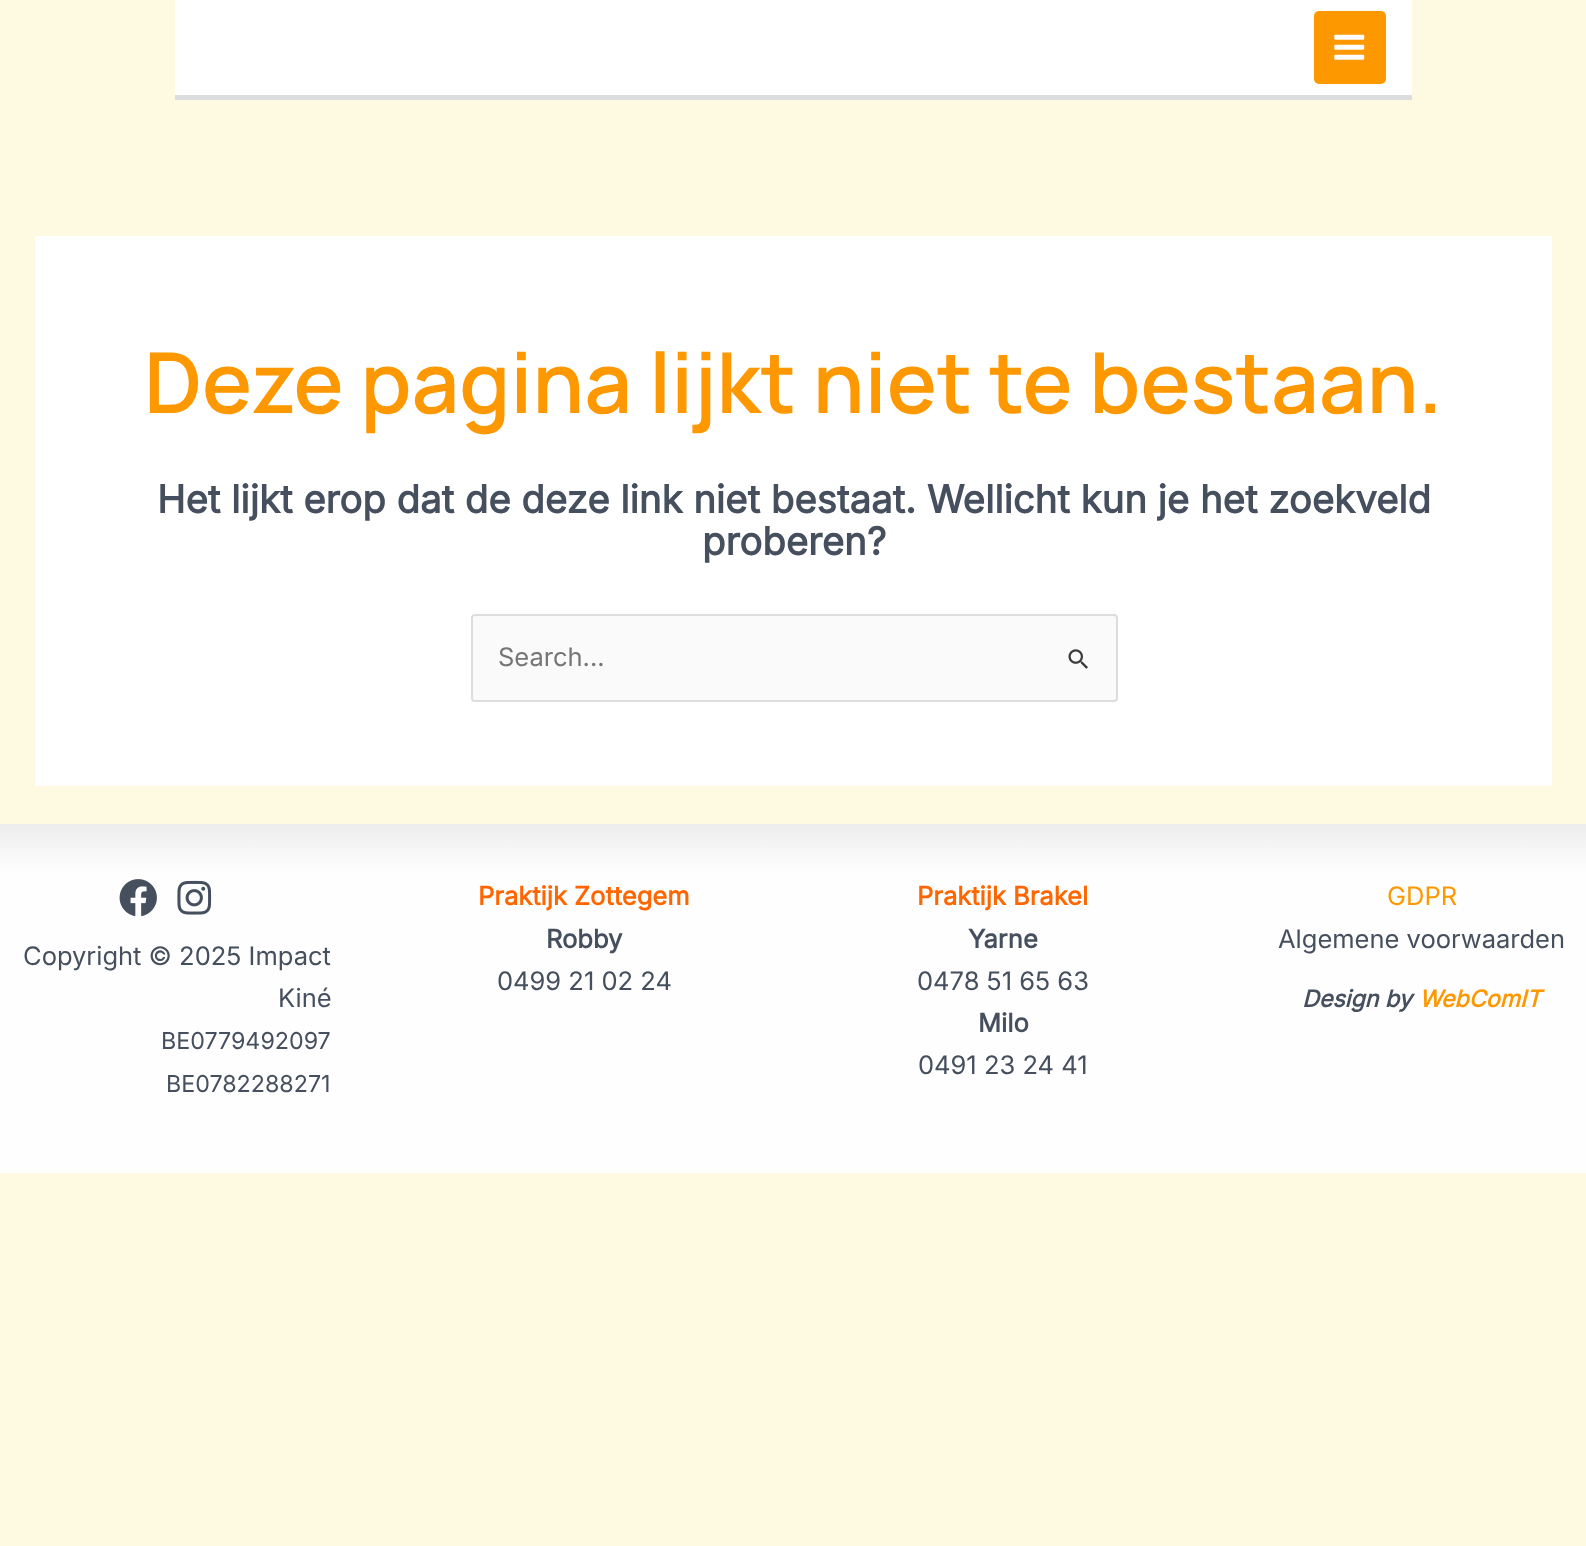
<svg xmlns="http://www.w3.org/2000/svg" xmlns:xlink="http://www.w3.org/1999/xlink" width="1586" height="1546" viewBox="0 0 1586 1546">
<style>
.cls-1{font:200 84px Manrope;fill:#fd9800}
.cls-2{font:bold 38.3px Inter;fill:#454f5e}
.cls-3{font:25.5px Inter;fill:#757575}
.cls-4{font:25.5px Inter;fill:#454f5e}
.cls-5{font:23.25px Inter;fill:#454f5e}
.cls-6{font:bold 25.5px Inter;fill:#ff6600}
.cls-7{font:bold 25.5px Inter;fill:#454f5e}
.cls-8{font:25.5px Inter;fill:#fd9800}
.cls-9{font:italic bold 23.25px Inter;fill:#454f5e}
.cls-10{font:italic bold 23.25px Inter;fill:#fd9800}
</style>
<defs>
<linearGradient id="g1" gradientUnits="userSpaceOnUse" x1="794" y1="1173" x2="794" y2="824"><stop offset="0.86" stop-color="#fefefe"/><stop offset="1" stop-color="#ededed"/></linearGradient>
</defs>
<rect width="100%" height="100%" fill="#fef9e1"/>
<rect fill="#ffffff" x="175" y="0" width="1237" height="95"/>
<rect fill="#dddddd" x="175" y="95" width="1237" height="5"/>
<rect fill="#fd9800" x="1314" y="11" width="72" height="73" rx="5"/>
<image xlink:href="image0.png" x="1334" y="34" width="31" height="26"/>
<rect fill="#ffffff" x="35" y="236" width="1517" height="550"/>
<rect fill="#fafafa" stroke="#dddddd" stroke-width="2" x="472" y="615" width="645" height="86" rx="3"/>
<image xlink:href="image1.png" x="1068" y="649" width="20" height="20"/>
<rect fill="url(#g1)" x="0" y="824" width="1586" height="349"/>
<image xlink:href="image2.png" x="119" y="879" width="38" height="38"/>
<image xlink:href="image3.png" x="177" y="880" width="35" height="35"/>
<text class="cls-1" x="144" y="413">Deze pagina lijkt niet te bestaan.</text>
<text class="cls-2" x="157" y="513">Het lijkt erop dat de deze link niet bestaat. Wellicht kun je het zoekveld</text>
<text class="cls-2" x="702" y="555">proberen?</text>
<text class="cls-3" x="498" y="666">Search...</text>
<text class="cls-4" x="23" y="965">Copyright © 2025 Impact</text>
<text class="cls-4" x="278" y="1007">Kiné</text>
<text class="cls-5" x="161" y="1049">BE0779492097</text>
<text class="cls-5" x="166" y="1092">BE0782288271</text>
<text class="cls-6" x="478" y="905">Praktijk Zottegem</text>
<text class="cls-7" x="546" y="948">Robby</text>
<text class="cls-4" x="497" y="990">0499 21 02 24</text>
<text class="cls-6" x="917" y="905">Praktijk Brakel</text>
<text class="cls-7" x="968" y="948">Yarne</text>
<text class="cls-4" x="917" y="990">0478 51 65 63</text>
<text class="cls-7" x="978" y="1032">Milo</text>
<text class="cls-4" x="918" y="1074">0491 23 24 41</text>
<text class="cls-8" x="1387" y="905">GDPR</text>
<text class="cls-4" x="1278" y="948">Algemene voorwaarden</text>
<text class="cls-9" x="1302" y="1007">Design by</text>
<text class="cls-10" x="1419" y="1007">WebComIT</text>
</svg>
